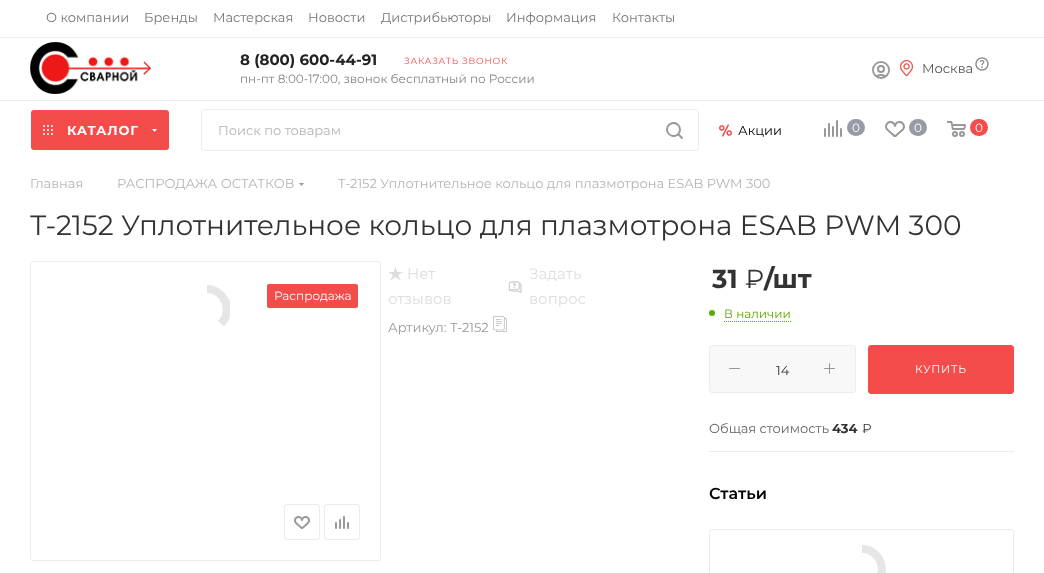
<svg xmlns="http://www.w3.org/2000/svg" xmlns:xlink="http://www.w3.org/1999/xlink" width="1044" height="573" viewBox="0 0 1044 573">
<style>
.cls-1{font:13px Montserrat;fill:#777777}
.cls-2{font:bold 15px Montserrat;fill:#222222}
.cls-3{font:9px Montserrat;letter-spacing:0.75px;fill:#f44c4b}
.cls-4{font:12px Montserrat;fill:#858585}
.cls-5{font:13px Montserrat;fill:#555555}
.cls-6{font:bold 13px Montserrat;letter-spacing:0.75px;fill:#ffffff}
.cls-7{font:13px Montserrat;fill:#b6b5b5}
.cls-8{font:13px Montserrat;fill:#000000}
.cls-9{font:12px Montserrat;fill:#ffffff}
.cls-10{font:28px Montserrat;fill:#333333}
.cls-11{font:15px Montserrat;fill:#dddddd}
.cls-12{font:13px Montserrat;fill:#999999}
.cls-13{font:bold 26px Montserrat;fill:#333333}
.cls-14{font:26px 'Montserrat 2';fill:#333333}
.cls-15{font:12px Montserrat;fill:#5fa800}
.cls-16{font:13px Montserrat;fill:#333333}
.cls-17{font:11px Montserrat;letter-spacing:0.75px;fill:#ffffff}
.cls-18{font:13px Montserrat;fill:#666666}
.cls-19{font:bold 13px Montserrat;fill:#333333}
.cls-20{font:13px 'Montserrat 2';fill:#333333}
.cls-21{font:600 16px Montserrat;fill:#000000}
</style>
<rect width="100%" height="100%" fill="#ffffff"/>
<rect fill="#ececec" x="0" y="37" width="1044" height="1"/>
<rect fill="#ececec" x="0" y="100" width="1044" height="1"/>
<image xlink:href="image0.png" x="30" y="42" width="121" height="52"/>
<image xlink:href="image1.png" x="872" y="61" width="18" height="18"/>
<image xlink:href="image2.png" x="900" y="60" width="13" height="16"/>
<image xlink:href="image3.png" x="975" y="57" width="14" height="14"/>
<rect fill="#f44c4b" x="31" y="110" width="138" height="40" rx="3"/>
<image xlink:href="image4.png" x="43" y="125" width="10" height="10"/>
<path fill="#ffffff" fill-rule="evenodd" d="M152 129H157L154.5 132Z"/>
<rect fill="none" stroke="#ececec" x="201.5" y="109.5" width="497" height="41" rx="2.5"/>
<image xlink:href="image5.png" x="666" y="122" width="17" height="17"/>
<image xlink:href="image6.png" x="719" y="124" width="13" height="13"/>
<image xlink:href="image7.png" x="824" y="120" width="18" height="17"/>
<rect fill="#969ba5" x="847" y="119" width="18" height="17" rx="8.5"/>
<image xlink:href="image8.png" x="885" y="121" width="20" height="16"/>
<rect fill="#969ba5" x="909" y="119" width="18" height="17" rx="8.5"/>
<image xlink:href="image9.png" x="947" y="121" width="19" height="16"/>
<rect fill="#f44c4b" x="970" y="119" width="18" height="17" rx="8.5"/>
<path fill="#999999" fill-rule="evenodd" d="M299 183H304L301.5 186Z"/>
<rect fill="none" stroke="#ececec" x="30.5" y="261.5" width="350" height="299" rx="2.5"/>
<path fill="#e6e6e6" d="M207 285V293C221 293 228 311 218 321L224 326C227 323 229 320 230 317V302C227 293 218 285 207 285Z"/>
<rect fill="#f44c4b" x="267" y="284" width="91" height="24" rx="2"/>
<rect fill="none" stroke="#ececec" x="284.5" y="504.5" width="35" height="35" rx="2.5"/>
<image xlink:href="image10.png" x="294" y="516" width="16" height="13"/>
<rect fill="none" stroke="#ececec" x="324.5" y="504.5" width="35" height="35" rx="2.5"/>
<image xlink:href="image11.png" x="335" y="516" width="14" height="13"/>
<image xlink:href="image12.png" x="388" y="267" width="15" height="13"/>
<image xlink:href="image13.png" x="508" y="281" width="14" height="12"/>
<image xlink:href="image14.png" x="493" y="316" width="14" height="16"/>
<circle fill="#5fa800" cx="712" cy="313" r="3"/>
<path fill="none" stroke="#5fa800" stroke-dasharray="1 1" d="M724 321.5H791"/>
<rect fill="#f8f8f8" stroke="#ececec" x="709.5" y="345.5" width="146" height="47" rx="2.5"/>
<rect fill="#969696" x="729" y="368" width="11" height="1" rx="0.5"/>
<image xlink:href="image15.png" x="824" y="363" width="11" height="11"/>
<rect fill="#f44c4b" stroke="#f44c4b" x="868.5" y="345.5" width="145" height="48" rx="2.5"/>
<rect fill="#ececec" x="709" y="451" width="305" height="1"/>
<rect fill="none" stroke="#ececec" x="709.5" y="529.5" width="304" height="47" rx="2.5"/>
<path fill="#e6e6e6" d="M862 545C883 545 894 571 879 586L873 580C883 570 876 553 862 553Z"/>
<text class="cls-1" x="46" y="22">О компании</text>
<text class="cls-1" x="144" y="22">Бренды</text>
<text class="cls-1" x="213" y="22">Мастерская</text>
<text class="cls-1" x="308" y="22">Новости</text>
<text class="cls-1" x="381" y="22">Дистрибьюторы</text>
<text class="cls-1" x="506" y="22">Информация</text>
<text class="cls-1" x="612" y="22">Контакты</text>
<text class="cls-2" x="240" y="65">8 (800) 600-44-91</text>
<text class="cls-3" x="404" y="64">ЗАКАЗАТЬ ЗВОНОК</text>
<text class="cls-4" x="240" y="83">пн-пт 8:00-17:00, звонок бесплатный по России</text>
<text class="cls-5" x="922" y="73">Москва</text>
<text class="cls-6" x="67" y="135">КАТАЛОГ</text>
<text class="cls-7" x="218" y="135">Поиск по товарам</text>
<text class="cls-8" x="738" y="135">Акции</text>
<text class="cls-9" x="852" y="132">0</text>
<text class="cls-9" x="914" y="132">0</text>
<text class="cls-9" x="975" y="132">0</text>
<text class="cls-7" x="30" y="188">Главная</text>
<text class="cls-7" x="117" y="188">РАСПРОДАЖА ОСТАТКОВ</text>
<text class="cls-7" x="338" y="188">Т-2152 Уплотнительное кольцо для плазмотрона ESAB PWM 300</text>
<text class="cls-10" x="30" y="235">Т-2152 Уплотнительное кольцо для плазмотрона ESAB PWM 300</text>
<text class="cls-9" x="274" y="300">Распродажа</text>
<text class="cls-11" x="407" y="279">Нет</text>
<text class="cls-11" x="388" y="304">отзывов</text>
<text class="cls-11"><tspan x="529" y="279">Задать</tspan><tspan x="529" y="304">вопрос</tspan></text>
<text class="cls-12" x="388" y="332">Артикул: Т-2152</text>
<text class="cls-13" x="712" y="288">31</text>
<text class="cls-14" x="745" y="288">₽</text>
<text class="cls-13" x="764" y="288">/шт</text>
<text class="cls-15" x="724" y="318">В наличии</text>
<text class="cls-16" x="776" y="375">14</text>
<text class="cls-17" x="915" y="373">КУПИТЬ</text>
<text class="cls-18" x="709" y="433">Общая стоимость</text>
<text class="cls-19" x="832" y="433">434</text>
<text class="cls-20" x="862" y="433">₽</text>
<text class="cls-21" x="709" y="499">Статьи</text>
</svg>
